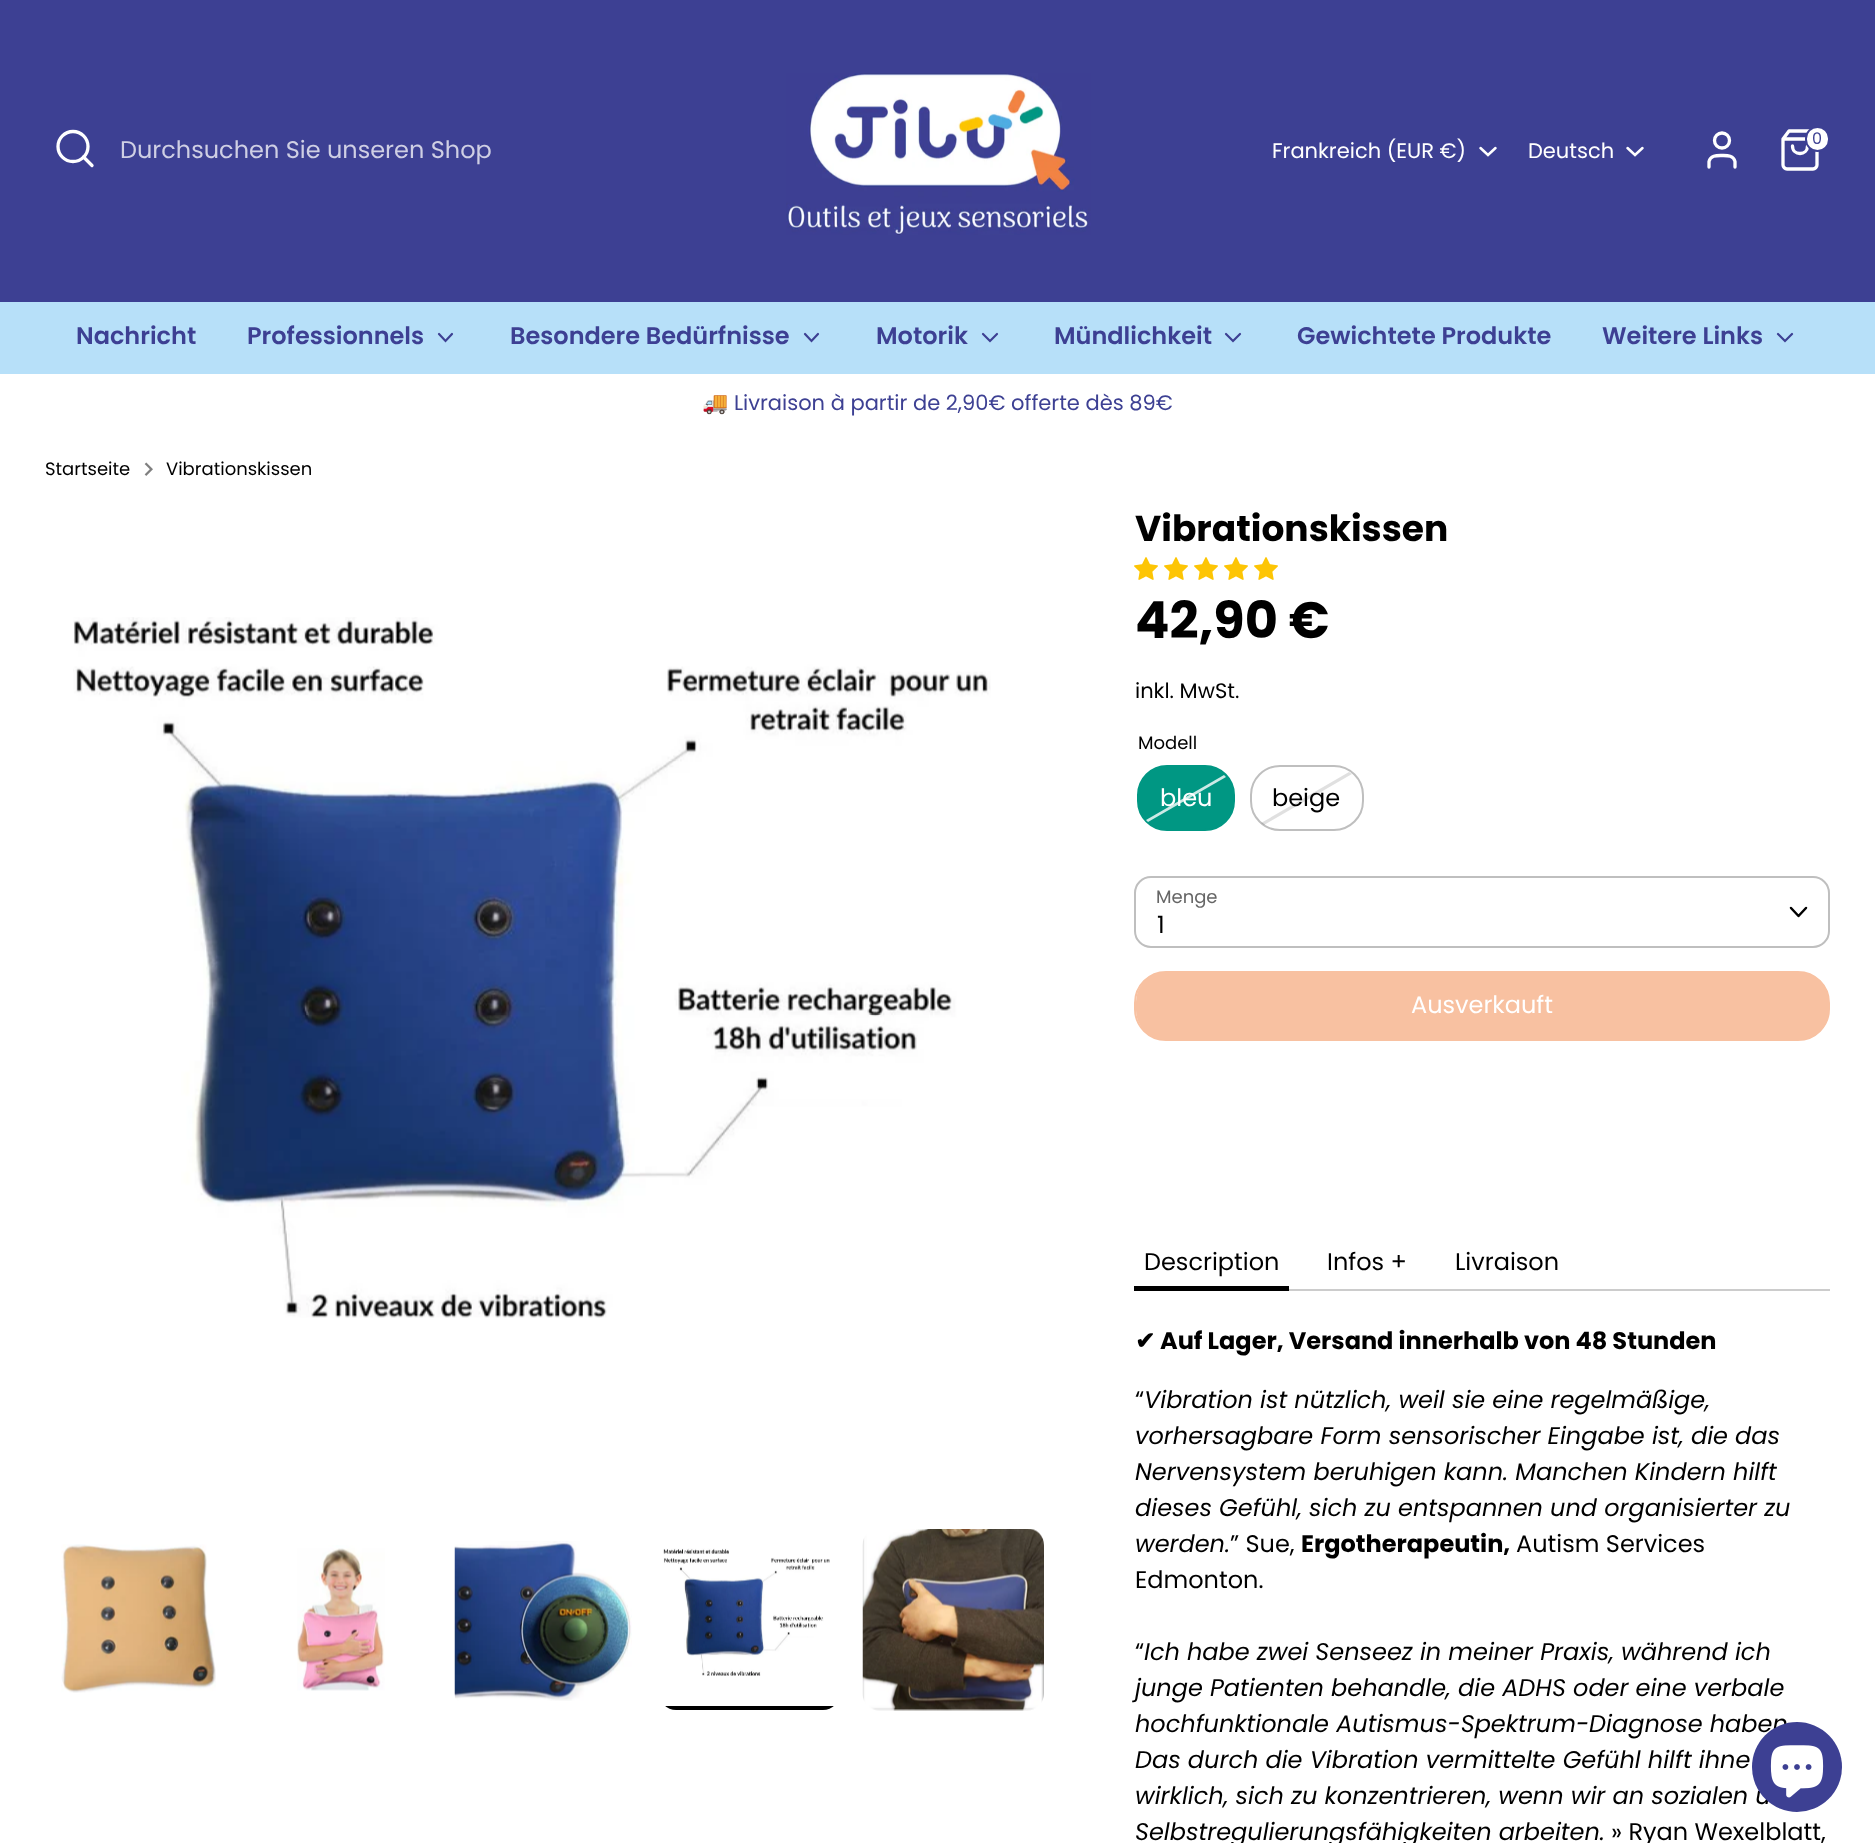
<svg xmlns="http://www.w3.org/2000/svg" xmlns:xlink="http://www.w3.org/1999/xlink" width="1875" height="1843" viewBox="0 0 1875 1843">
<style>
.cls-1{font:24px Poppins;fill:#cfcfe4}
.cls-2{font:21px Poppins;fill:#ffffff}
.cls-3{font:16px Poppins;fill:#3d4093}
.cls-4{font:600 24px Poppins;fill:#3d4093}
.cls-5{font:21px Noto Color Emoji;fill:#3d4093}
.cls-6{font:21px Poppins;fill:#3d4093}
.cls-7{font:18px Poppins;fill:#000000}
.cls-8{font:bold 36px Poppins;fill:#000000}
.cls-9{font:bold 51px Poppins;fill:#000000}
.cls-10{font:21px Poppins;fill:#000000}
.cls-11{font:24px Poppins;fill:#ffffff}
.cls-12{font:24px Poppins;fill:#000000}
.cls-13{font:18px Poppins;fill:#666666}
.cls-14{font:bold 24px DejaVu Sans;fill:#000000}
.cls-15{font:bold 24px Poppins;fill:#000000}
.cls-16{font:italic 24px Poppins;fill:#000000}
</style>
<defs>
<clipPath id="clip1"><rect x="659" y="1529" width="181" height="181" rx="17"/></clipPath>
</defs>
<rect width="100%" height="100%" fill="#ffffff"/>
<rect fill="#3d4093" x="0" y="0" width="1875" height="302"/>
<circle fill="none" stroke="#ffffff" stroke-width="3.3" cx="73" cy="146.5" r="15"/>
<path fill="none" stroke="#ffffff" stroke-width="3.3" stroke-linecap="round" stroke-linejoin="round" d="M92 165.5L83.5 157"/>
<image xlink:href="image0.png" x="786" y="73" width="305" height="162"/>
<path fill="none" stroke="#ffffff" stroke-width="2.5" stroke-linecap="round" d="M1480.5 148L1488 155L1495.5 148"/>
<path fill="none" stroke="#ffffff" stroke-width="2.5" stroke-linecap="round" d="M1627.5 148L1635 155L1642.5 148"/>
<path fill="none" stroke="#ffffff" stroke-width="3.3" stroke-linecap="round" stroke-linejoin="round" d="M1735 167V161.5C1733.5 155 1727 155.5 1722 155.5C1717 155.5 1710.5 155 1709 161.5V167"/>
<circle fill="none" stroke="#ffffff" stroke-width="3.3" cx="1722" cy="140.5" r="7.5"/>
<path fill="none" stroke="#ffffff" stroke-width="3.3" stroke-linecap="round" stroke-linejoin="round" d="M1789 131L1783 139V165C1783 167 1785 169 1787 169H1813C1815 169 1817 167 1817 165V139L1811 131ZM1783 139H1817M1807.5 146C1807.5 156 1792.5 156 1792.5 146"/>
<rect fill="#ffffff" stroke="#3d4093" stroke-width="2" x="1806" y="127" width="23" height="24" rx="11.5"/>
<rect fill="#b7e0f9" x="0" y="302" width="1875" height="72"/>
<path fill="none" stroke="#3d4093" stroke-width="2.2" stroke-linecap="round" d="M439 334L445.5 341L452 334"/>
<path fill="none" stroke="#3d4093" stroke-width="2.2" stroke-linecap="round" d="M805 334L811.5 341L818 334"/>
<path fill="none" stroke="#3d4093" stroke-width="2.2" stroke-linecap="round" d="M983 334L990 341L997 334"/>
<path fill="none" stroke="#3d4093" stroke-width="2.2" stroke-linecap="round" d="M1226 334L1233 341L1240 334"/>
<path fill="none" stroke="#3d4093" stroke-width="2.2" stroke-linecap="round" d="M1778 334L1785 341L1792 334"/>
<image xlink:href="image1.png" x="144" y="462" width="9" height="14"/>
<image xlink:href="image2.png" x="73" y="617" width="918" height="701"/>
<image xlink:href="image3.png" x="61" y="1544" width="155" height="149"/>
<image xlink:href="image4.png" x="297" y="1545" width="88" height="146"/>
<image xlink:href="image5.png" x="454" y="1541" width="178" height="160"/>
<image xlink:href="image6.png" x="663" y="1548" width="167" height="128"/>
<g clip-path="url(#clip1)">
<rect fill="#000000" x="659" y="1706" width="181" height="4"/>
</g>
<image xlink:href="image7.png" x="862" y="1529" width="182" height="182"/>
<image xlink:href="image8.png" x="1134" y="557" width="24" height="23"/>
<image xlink:href="image8.png" x="1164" y="557" width="24" height="23"/>
<image xlink:href="image8.png" x="1194" y="557" width="24" height="23"/>
<image xlink:href="image8.png" x="1224" y="557" width="24" height="23"/>
<image xlink:href="image8.png" x="1254" y="557" width="24" height="23"/>
<rect fill="#009783" stroke="#009783" stroke-width="2" x="1138" y="766" width="96" height="64" rx="29"/>
<rect fill="none" stroke="#bfbfbf" stroke-width="2" x="1251" y="766" width="112" height="64" rx="29"/>
<path fill="#000000" fill-opacity="0.12" d="M1352 774L1264 825L1261 823L1349 772Z"/>
<rect fill="none" stroke="#bfbfbf" stroke-width="2" x="1135" y="877" width="694" height="70" rx="16"/>
<path fill="none" stroke="#000000" stroke-width="2.5" stroke-linecap="round" stroke-linejoin="round" d="M1791 908L1798.5 916L1806 908"/>
<rect fill="none" stroke="#f8c1a1" stroke-width="2" x="1135" y="972" width="694" height="68" rx="31"/>
<rect fill="#f8c1a1" x="1136" y="972" width="693" height="68" rx="30"/>
<rect fill="#cccccc" x="1289" y="1289" width="541" height="2"/>
<rect fill="#000000" x="1134" y="1286" width="155" height="5"/>
<text class="cls-1" x="120" y="158">Durchsuchen Sie unseren Shop</text>
<text class="cls-2" x="1272" y="158">Frankreich (EUR €)</text>
<text class="cls-2" x="1528" y="158">Deutsch</text>
<text class="cls-3" x="1812" y="144">0</text>
<text class="cls-4" x="76" y="344">Nachricht</text>
<text class="cls-4" x="247" y="344">Professionnels</text>
<text class="cls-4" x="510" y="344">Besondere Bedürfnisse</text>
<text class="cls-4" x="876" y="344">Motorik</text>
<text class="cls-4" x="1054" y="344">Mündlichkeit</text>
<text class="cls-4" x="1297" y="344">Gewichtete Produkte</text>
<text class="cls-4" x="1602" y="344">Weitere Links</text>
<text class="cls-5" x="702" y="410">🚚</text>
<text class="cls-6" x="734" y="410">Livraison à partir de 2,90€ offerte dès 89€</text>
<text class="cls-7" x="45" y="475">Startseite</text>
<text class="cls-7" x="166" y="475">Vibrationskissen</text>
<text class="cls-8" x="1135" y="541">Vibrationskissen</text>
<text class="cls-9" x="1135" y="638">42,90 €</text>
<text class="cls-10" x="1135" y="698">inkl. MwSt.</text>
<text class="cls-7" x="1138" y="749">Modell</text>
<text class="cls-11" x="1160" y="806">bleu</text>
<path fill="#ffffff" fill-opacity="0.8" d="M1226 777L1148 822L1146 820L1224 775Z"/>
<text class="cls-12" x="1272" y="806">beige</text>
<text class="cls-13" x="1156" y="903">Menge</text>
<text class="cls-12" x="1157" y="933">1</text>
<text class="cls-11" x="1411" y="1013">Ausverkauft</text>
<text class="cls-12" x="1144" y="1270">Description</text>
<text class="cls-12" x="1327" y="1270">Infos +</text>
<text class="cls-12" x="1455" y="1270">Livraison</text>
<text class="cls-14" x="1135" y="1349">✔︎</text>
<text class="cls-15" x="1160" y="1349">Auf Lager, Versand innerhalb von 48 Stunden</text>
<text class="cls-12" x="1135" y="1408">“</text>
<text class="cls-16" x="1144" y="1408">Vibration ist nützlich, weil sie eine regelmäßige,</text>
<text class="cls-16"><tspan x="1135" y="1444">vorhersagbare Form sensorischer Eingabe ist, die das</tspan><tspan x="1135" y="1480">Nervensystem beruhigen kann. Manchen Kindern hilft</tspan><tspan x="1135" y="1516">dieses Gefühl, sich zu entspannen und organisierter zu</tspan><tspan x="1135" y="1552">werden.</tspan></text>
<text class="cls-12" x="1230" y="1552">” Sue,</text>
<text class="cls-15" x="1301" y="1552">Ergotherapeutin,</text>
<text class="cls-12" x="1516" y="1552">Autism Services</text>
<text class="cls-12" x="1135" y="1588">Edmonton.</text>
<text class="cls-12" x="1135" y="1660">“</text>
<text class="cls-16" x="1144" y="1660">Ich habe zwei Senseez in meiner Praxis, während ich</text>
<text class="cls-16"><tspan x="1135" y="1696">junge Patienten behandle, die ADHS oder eine verbale</tspan><tspan x="1135" y="1732">hochfunktionale Autismus-Spektrum-Diagnose haben</tspan><tspan x="1135" y="1768">Das durch die Vibration vermittelte Gefühl hilft ihne</tspan><tspan x="1135" y="1804">wirklich, sich zu konzentrieren, wenn wir an sozialen u</tspan><tspan x="1135" y="1840">Selbstregulierungsfähigkeiten arbeiten.</tspan></text>
<text class="cls-12" x="1611" y="1840">» Ryan Wexelblatt,</text>
<circle fill="#3d4093" cx="1797" cy="1767" r="45"/>
<image xlink:href="image9.png" x="1770" y="1745" width="54" height="53"/>
</svg>
